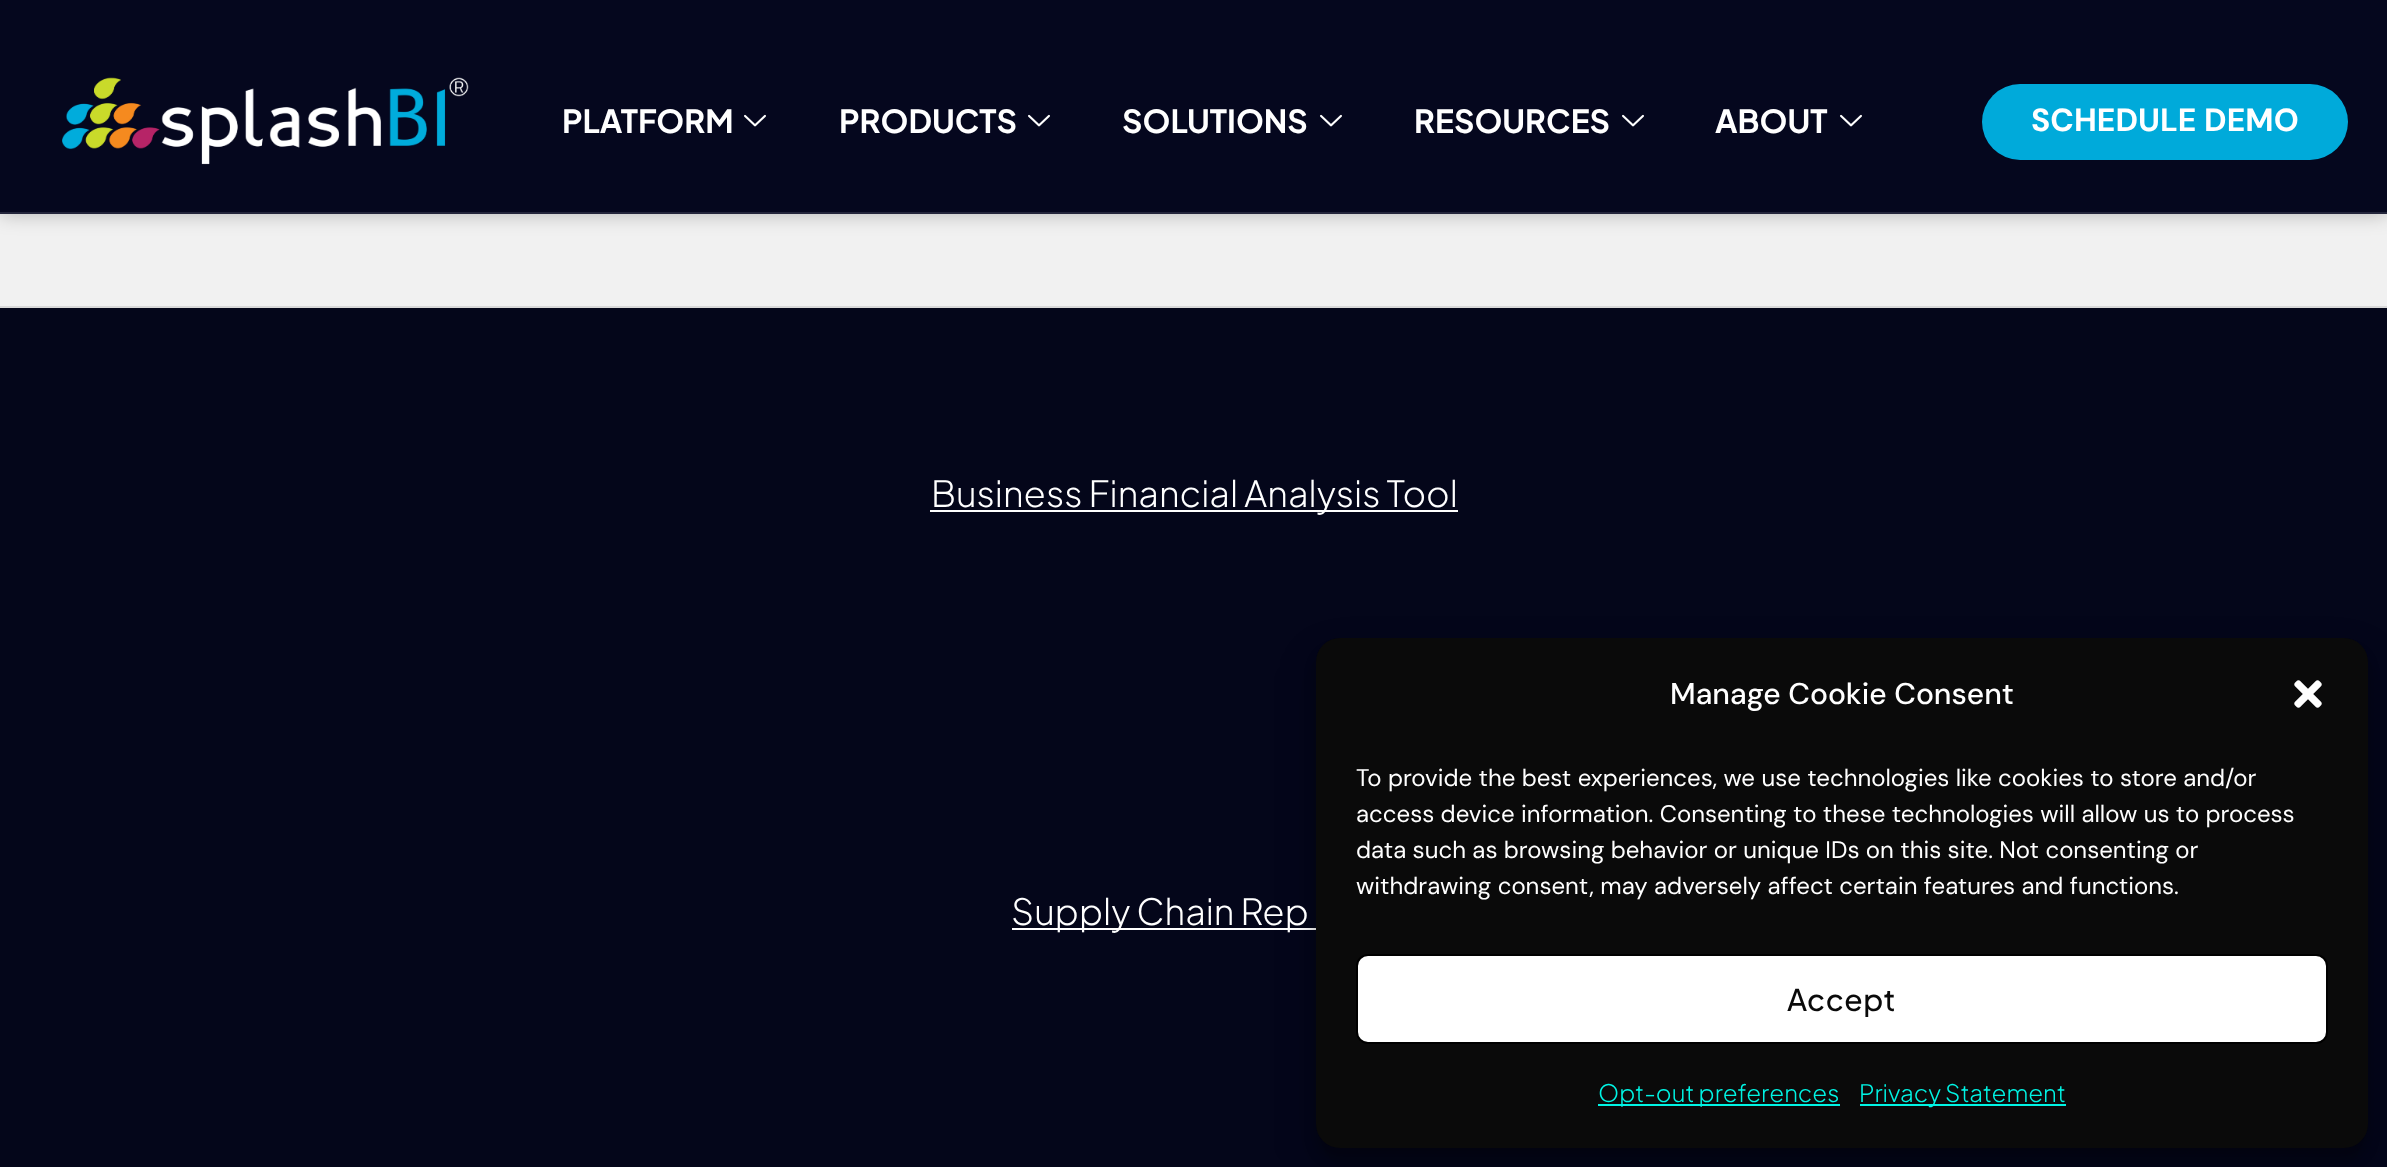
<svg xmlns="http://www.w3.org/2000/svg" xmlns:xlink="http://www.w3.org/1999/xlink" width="2387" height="1167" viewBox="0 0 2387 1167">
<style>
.cls-1{font:bold 31.75px Plus Jakarta Sans;fill:#ffffff}
.cls-2{font:bold 32px DM Sans;fill:#ffffff}
.cls-3{font:300 36px Plus Jakarta Sans;fill:#ffffff}
.cls-4{font:500 30px DM Sans;fill:#ffffff}
.cls-5{font:24px DM Sans;fill:#ffffff}
.cls-6{font:500 30px Plus Jakarta Sans;letter-spacing:0.5px;fill:#0a0a0a}
.cls-7{font:300 24px Plus Jakarta Sans;fill:#00f4e4}
</style>
<rect width="100%" height="100%" fill="#04061a"/>
<rect fill="#f1f1f1" x="0" y="214" width="2387" height="92"/>
<rect fill="#000000" fill-opacity="0.25" filter="blur(10px)" x="0" y="0" width="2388" height="214"/>
<rect fill="#05071e" x="0" y="0" width="2387" height="212"/>
<rect fill="#23253b" x="0" y="212" width="2387" height="2"/>
<image xlink:href="image0.png" x="62" y="77" width="407" height="88"/>
<image xlink:href="image1.png" x="744" y="114" width="22" height="13"/>
<image xlink:href="image1.png" x="1028" y="114" width="22" height="13"/>
<image xlink:href="image1.png" x="1320" y="114" width="22" height="13"/>
<image xlink:href="image1.png" x="1622" y="114" width="22" height="13"/>
<image xlink:href="image1.png" x="1840" y="114" width="22" height="13"/>
<rect fill="#00aada" x="1982" y="84" width="366" height="76" rx="38"/>
<rect fill="#d9d9d9" x="0" y="306" width="2387" height="2"/>
<rect fill="#ffffff" x="930" y="510" width="528" height="2"/>
<rect fill="#ffffff" x="1012" y="928" width="304" height="2"/>
<rect fill="#000000" fill-opacity="0.23" filter="blur(6px)" x="1316" y="650" width="1052" height="510" rx="24"/>
<rect fill="#000000" fill-opacity="0.19" filter="blur(20px)" x="1316" y="658" width="1052" height="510" rx="24"/>
<rect fill="#0a0a0a" x="1316" y="638" width="1052" height="510" rx="24"/>
<image xlink:href="image2.png" x="2294" y="680" width="28" height="28"/>
<rect fill="#ffffff" stroke="#000000" stroke-width="2" x="1357" y="955" width="970" height="88" rx="11"/>
<rect fill="#00f4e4" x="1598" y="1104" width="242" height="2"/>
<rect fill="#00f4e4" x="1860" y="1104" width="206" height="2"/>
<text class="cls-1" x="562" y="133">PLATFORM</text>
<text class="cls-1" x="839" y="133">PRODUCTS</text>
<text class="cls-1" x="1122" y="133">SOLUTIONS</text>
<text class="cls-1" x="1414" y="133">RESOURCES</text>
<text class="cls-1" x="1715" y="133">ABOUT</text>
<text class="cls-2" x="2031" y="131">SCHEDULE DEMO</text>
<text class="cls-3" x="931" y="507">Business Financial Analysis Tool</text>
<text class="cls-3" x="1011" y="925">Supply Chain Rep</text>
<text class="cls-4" x="1670" y="704">Manage Cookie Consent</text>
<text class="cls-5"><tspan x="1356" y="786">To provide the best experiences, we use technologies like cookies to store and/or</tspan><tspan x="1356" y="822">access device information. Consenting to these technologies will allow us to process</tspan><tspan x="1356" y="858">data such as browsing behavior or unique IDs on this site. Not consenting or</tspan><tspan x="1356" y="894">withdrawing consent, may adversely affect certain features and functions.</tspan></text>
<text class="cls-6" x="1787" y="1011">Accept</text>
<text class="cls-7" x="1598" y="1102">Opt-out preferences</text>
<text class="cls-7" x="1859" y="1102">Privacy Statement</text>
</svg>
